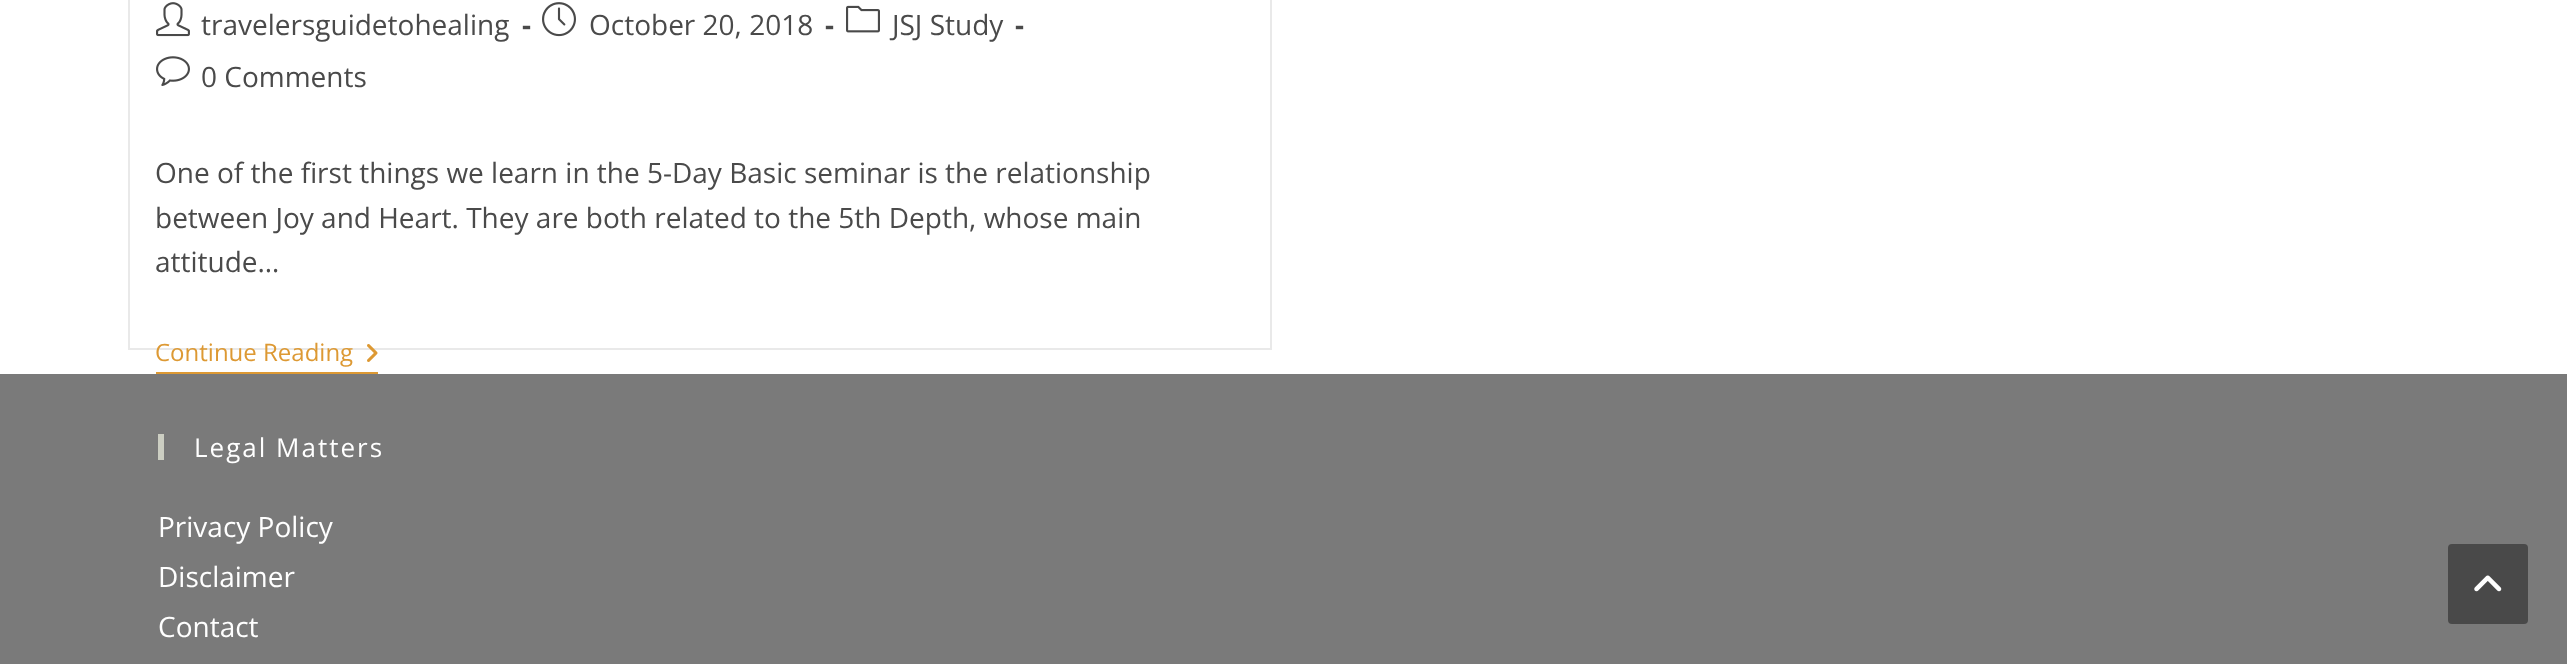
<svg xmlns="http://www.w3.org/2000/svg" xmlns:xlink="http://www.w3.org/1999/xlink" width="2567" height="664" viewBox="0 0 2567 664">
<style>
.cls-1{font:28px Open Sans;fill:#4a4a4a}
.cls-2{font:bold 28px Open Sans;fill:#4a4a4a}
.cls-3{font:24px Open Sans;fill:#dd9933}
.cls-4{font:26px Open Sans;letter-spacing:2px;fill:#ffffff}
.cls-5{font:28px Open Sans;fill:#ffffff}
</style>
<rect width="100%" height="100%" fill="#ffffff"/>
<rect fill="none" stroke="#e9e9e9" stroke-width="2" x="129" y="-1" width="1142" height="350"/>
<image xlink:href="image0.png" x="156" y="2" width="34" height="35"/>
<image xlink:href="image1.png" x="542" y="2" width="34" height="35"/>
<image xlink:href="image2.png" x="846" y="5" width="34" height="28"/>
<image xlink:href="image3.png" x="156" y="56" width="34" height="30"/>
<rect fill="#dd9933" x="156" y="372" width="222" height="2"/>
<image xlink:href="image4.png" x="367" y="344" width="11" height="18"/>
<rect fill="#7a7a7a" x="0" y="374" width="2567" height="290"/>
<rect fill="#cccec2" x="158" y="434" width="6" height="26"/>
<rect fill="#494949" x="2448" y="544" width="80" height="80" rx="4"/>
<image xlink:href="image5.png" x="2474" y="575" width="28" height="17"/>
<text class="cls-1" x="201" y="35">travelersguidetohealing</text>
<text class="cls-2" x="522" y="35">-</text>
<text class="cls-1" x="589" y="35">October 20, 2018</text>
<text class="cls-2" x="825" y="35">-</text>
<text class="cls-1" x="892" y="35">JSJ Study</text>
<text class="cls-2" x="1015" y="35">-</text>
<text class="cls-1" x="201" y="87">0 Comments</text>
<text class="cls-1"><tspan x="155" y="183">One of the first things we learn in the 5-Day Basic seminar is the relationship</tspan><tspan x="155" y="228">between Joy and Heart. They are both related to the 5th Depth, whose main</tspan><tspan x="155" y="272">attitude…</tspan></text>
<text class="cls-3" x="155" y="361">Continue Reading</text>
<text class="cls-4" x="194" y="457">Legal Matters</text>
<text class="cls-5"><tspan x="158" y="537">Privacy Policy</tspan><tspan x="158" y="587">Disclaimer</tspan><tspan x="158" y="637">Contact</tspan></text>
</svg>
